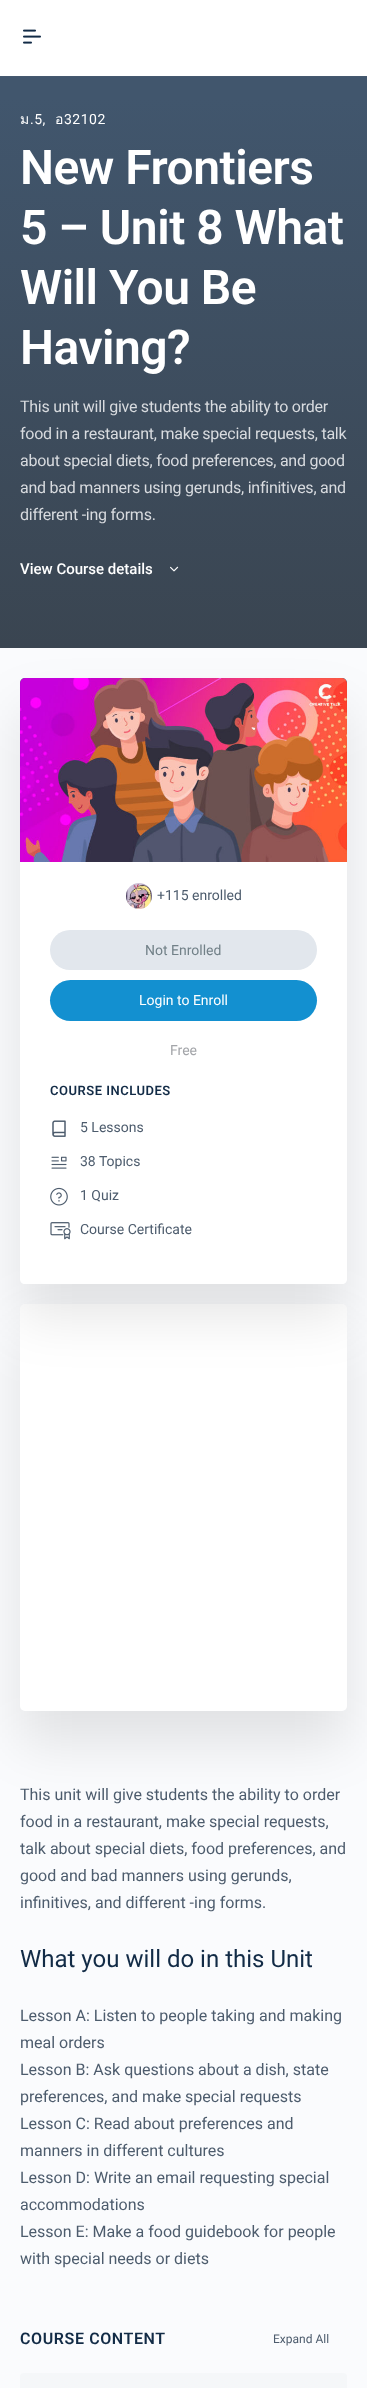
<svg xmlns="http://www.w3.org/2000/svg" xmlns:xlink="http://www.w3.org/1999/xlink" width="367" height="2388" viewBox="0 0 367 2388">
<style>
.cls-1{font:14px Loma;letter-spacing:0.5px;fill:#ffffff}
.cls-2{font:14px Roboto;letter-spacing:0.5px;fill:#ffffff}
.cls-3{font:600 48px Roboto;letter-spacing:-0.5px;fill:#ffffff}
.cls-4{font:16px Roboto;letter-spacing:-0.25px;fill:#d8dbdf}
.cls-5{font:500 15px Roboto;fill:#ffffff}
.cls-6{font:14px Roboto;fill:#4d5c6d}
.cls-7{font:14px Roboto;fill:#728188}
.cls-8{font:14px Roboto;fill:#ffffff}
.cls-9{font:14px Roboto;fill:#a3a5a9}
.cls-10{font:600 13px Roboto;letter-spacing:0.5px;fill:#122b46}
.cls-11{font:16px Roboto;fill:#4d5c6d}
.cls-12{font:24px Roboto;fill:#122b46}
.cls-13{font:600 16px Roboto;letter-spacing:0.6px;fill:#122b46}
.cls-14{font:12px Roboto;fill:#4d5c6d}
</style>
<defs>
<linearGradient id="g1" gradientUnits="userSpaceOnUse" x1="184" y1="76" x2="183" y2="648"><stop offset="0.04" stop-color="#41566d"/><stop offset="1" stop-color="#3a4551"/></linearGradient>
</defs>
<rect width="100%" height="100%" fill="#fafbfd"/>
<rect fill="#45596f" x="0" y="76" width="367" height="1"/>
<rect fill="#ffffff" x="0" y="0" width="367" height="76"/>
<image xlink:href="image0.png" x="23" y="29" width="18" height="15"/>
<rect fill="#000000" fill-opacity="0.1" filter="blur(27px)" x="20" y="1336" width="327" height="407" rx="5"/>
<rect fill="#ffffff" x="20" y="1304" width="327" height="407" rx="5"/>
<rect fill="#000000" fill-opacity="0.1" filter="blur(27px)" x="20" y="710" width="327" height="606" rx="5"/>
<rect fill="url(#g1)" x="0" y="77" width="367" height="571"/>
<image xlink:href="image1.png" x="170" y="566" width="9" height="6"/>
<path fill="#607387" d="M25 678H342C345 678 347 680 347 683V862H20V683C20 680 22 678 25 678Z"/>
<image xlink:href="image2.png" x="20" y="678" width="327" height="184"/>
<path fill="#ffffff" d="M20 862H347V1279C347 1282 345 1284 342 1284H25C22 1284 20 1282 20 1279Z"/>
<image xlink:href="image3.png" x="126" y="883" width="26" height="26"/>
<rect fill="#e2e7ed" x="50" y="930" width="267" height="40" rx="20"/>
<rect fill="#1390d0" x="50" y="980" width="267" height="41" rx="20.5"/>
<image xlink:href="image4.png" x="52" y="1120" width="14" height="17"/>
<image xlink:href="image5.png" x="51" y="1156" width="16" height="13"/>
<image xlink:href="image6.png" x="50" y="1187" width="18" height="19"/>
<image xlink:href="image7.png" x="50" y="1222" width="21" height="18"/>
<rect fill="#f5f7f9" x="20" y="2373" width="327" height="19" rx="4"/>
<text class="cls-1" x="20" y="124">ม</text>
<text class="cls-2" x="30" y="124">.5,</text>
<text class="cls-1" x="55" y="124">อ</text>
<text class="cls-2" x="64" y="124">32102</text>
<text class="cls-3"><tspan x="20" y="184">New Frontiers</tspan><tspan x="20" y="244">5 – Unit 8 What</tspan><tspan x="20" y="304">Will You Be</tspan><tspan x="20" y="364">Having?</tspan></text>
<text class="cls-4"><tspan x="20" y="412">This unit will give students the ability to order</tspan><tspan x="20" y="439">food in a restaurant, make special requests, talk</tspan><tspan x="20" y="466">about special diets, food preferences, and good</tspan><tspan x="20" y="493">and bad manners using gerunds, infinitives, and</tspan><tspan x="20" y="520">different -ing forms.</tspan></text>
<text class="cls-5" x="20" y="574">View Course details</text>
<text class="cls-6" x="157" y="900">+115 enrolled</text>
<text class="cls-7" x="145" y="955">Not Enrolled</text>
<text class="cls-8" x="139" y="1005">Login to Enroll</text>
<text class="cls-9" x="170" y="1055">Free</text>
<text class="cls-10" x="50" y="1095">COURSE INCLUDES</text>
<text class="cls-6" x="80" y="1132">5 Lessons</text>
<text class="cls-6" x="80" y="1166">38 Topics</text>
<text class="cls-6" x="80" y="1200">1 Quiz</text>
<text class="cls-6" x="80" y="1234">Course Certificate</text>
<text class="cls-11"><tspan x="20" y="1800">This unit will give students the ability to order</tspan><tspan x="20" y="1827">food in a restaurant, make special requests,</tspan><tspan x="20" y="1854">talk about special diets, food preferences, and</tspan><tspan x="20" y="1881">good and bad manners using gerunds,</tspan><tspan x="20" y="1908">infinitives, and different -ing forms.</tspan></text>
<text class="cls-12" x="20" y="1967">What you will do in this Unit</text>
<text class="cls-11"><tspan x="20" y="2021">Lesson A: Listen to people taking and making</tspan><tspan x="20" y="2048">meal orders</tspan><tspan x="20" y="2075">Lesson B: Ask questions about a dish, state</tspan><tspan x="20" y="2102">preferences, and make special requests</tspan><tspan x="20" y="2129">Lesson C: Read about preferences and</tspan><tspan x="20" y="2156">manners in different cultures</tspan><tspan x="20" y="2183">Lesson D: Write an email requesting special</tspan><tspan x="20" y="2210">accommodations</tspan><tspan x="20" y="2237">Lesson E: Make a food guidebook for people</tspan><tspan x="20" y="2264">with special needs or diets</tspan></text>
<text class="cls-13" x="20" y="2344">COURSE CONTENT</text>
<text class="cls-14" x="273" y="2343">Expand All</text>
</svg>
